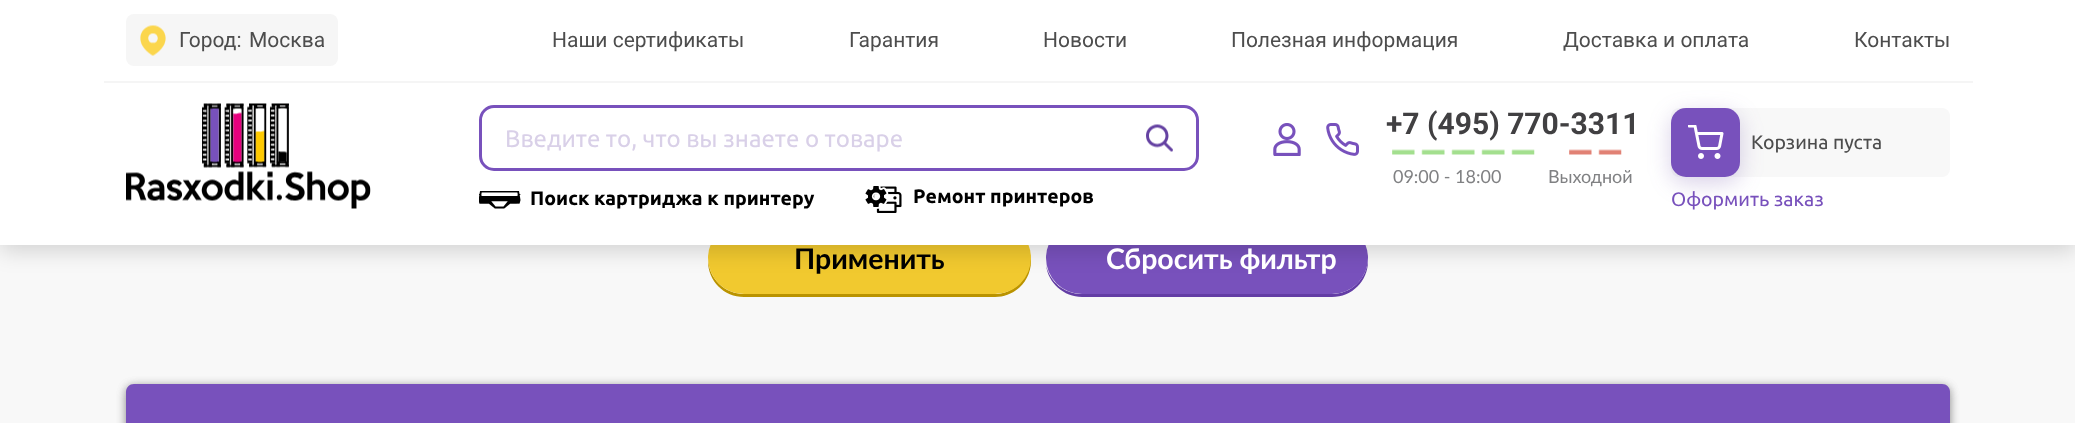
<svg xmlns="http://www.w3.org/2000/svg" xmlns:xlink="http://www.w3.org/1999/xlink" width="2075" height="423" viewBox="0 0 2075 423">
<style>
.cls-1{font:21px Roboto;fill:#4d4d4d}
.cls-2{font:24px Ubuntu;fill:#d9d0e8}
.cls-3{font:bold 19.5px Ubuntu;fill:#000000}
.cls-4{font:bold 30px Roboto;fill:#414042}
.cls-5{font:18px Lato;fill:#808183}
.cls-6{font:19.5px Ubuntu;fill:#4d4d4d}
.cls-7{font:19.5px Ubuntu;fill:#7851bc}
.cls-8{font:bold 28.5px Lato;fill:#000000}
.cls-9{font:bold 28.5px Lato;fill:#ffffff}
</style>
<rect width="100%" height="100%" fill="#f8f8f8"/>
<path fill="#ba9300" d="M708 259V261C708 281 724 297 744 297H995C1015 297 1031 281 1031 261L1030 254V258C1030 278 1014 294 994 294H744C725 294 709 279 708 259Z"/>
<rect fill="#f1c92f" x="708" y="222" width="323" height="72" rx="36"/>
<path fill="#633da5" d="M1046 265C1048 283 1064 297 1082 297H1332C1352 297 1368 281 1368 261V259C1367 279 1351 294 1332 294H1082C1064 294 1050 282 1046 265Z"/>
<rect fill="#7851bc" x="1046" y="222" width="322" height="72" rx="36"/>
<rect fill="#000000" fill-opacity="0.15" filter="blur(11px)" x="0" y="6" width="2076" height="245"/>
<rect fill="#ffffff" x="0" y="0" width="2075" height="245"/>
<rect fill="#f5f5f5" x="104" y="81" width="1869" height="2"/>
<rect fill="#f6f6f6" x="126" y="14" width="212" height="52" rx="8"/>
<image xlink:href="image0.png" x="140" y="25" width="26" height="31"/>
<image xlink:href="image1.png" x="126" y="103" width="245" height="106"/>
<rect fill="none" stroke="#7851bc" stroke-width="3" x="480.5" y="106.5" width="717" height="63" rx="13.5"/>
<image xlink:href="image2.png" x="1146" y="124" width="27" height="28"/>
<image xlink:href="image3.png" x="479" y="191" width="42" height="18"/>
<image xlink:href="image4.png" x="865" y="186" width="37" height="27"/>
<image xlink:href="image5.png" x="1273" y="123" width="28" height="33"/>
<image xlink:href="image6.png" x="1326" y="123" width="33" height="33"/>
<image xlink:href="image7.png" x="1392" y="149" width="143" height="6"/>
<image xlink:href="image8.png" x="1569" y="149" width="53" height="6"/>
<rect fill="#f8f8f8" x="1671" y="108" width="279" height="69" rx="8"/>
<rect fill="#6542a2" fill-opacity="0.25" filter="blur(11px)" x="1671" y="114" width="69" height="69" rx="15"/>
<rect fill="#7851bc" x="1671" y="108" width="69" height="69" rx="15"/>
<image xlink:href="image9.png" x="1688" y="125" width="36" height="34"/>
<rect fill="#000000" fill-opacity="0.24" filter="blur(5px)" x="126" y="386" width="1824" height="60" rx="8"/>
<rect fill="#000000" fill-opacity="0.24" filter="blur(5px)" x="126" y="386" width="1824" height="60" rx="8"/>
<path fill="#7851bc" d="M134 384H1942C1946.5 384 1950 387.5 1950 392V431H126V392C126 387.5 129.5 384 134 384Z"/>
<text class="cls-1" x="179" y="47">Город:</text>
<text class="cls-1" x="249" y="47">Москва</text>
<text class="cls-1" x="552" y="47">Наши сертификаты</text>
<text class="cls-1" x="849" y="47">Гарантия</text>
<text class="cls-1" x="1043" y="47">Новости</text>
<text class="cls-1" x="1231" y="47">Полезная информация</text>
<text class="cls-1" x="1563" y="47">Доставка и оплата</text>
<text class="cls-1" x="1854" y="47">Контакты</text>
<text class="cls-2" x="505" y="147">Введите то, что вы знаете о товаре</text>
<text class="cls-3" x="530" y="205">Поиск картриджа к принтеру</text>
<text class="cls-3" x="913" y="203">Ремонт принтеров</text>
<text class="cls-4" x="1386" y="134">+7 (495) 770-3311</text>
<text class="cls-5" x="1393" y="183">09:00 - 18:00</text>
<text class="cls-5" x="1548" y="183">Выходной</text>
<text class="cls-6" x="1751" y="149">Корзина пуста</text>
<text class="cls-7" x="1671" y="206">Оформить заказ</text>
<text class="cls-8" x="794" y="269">Применить</text>
<text class="cls-9" x="1106" y="269">Сбросить фильтр</text>
</svg>
